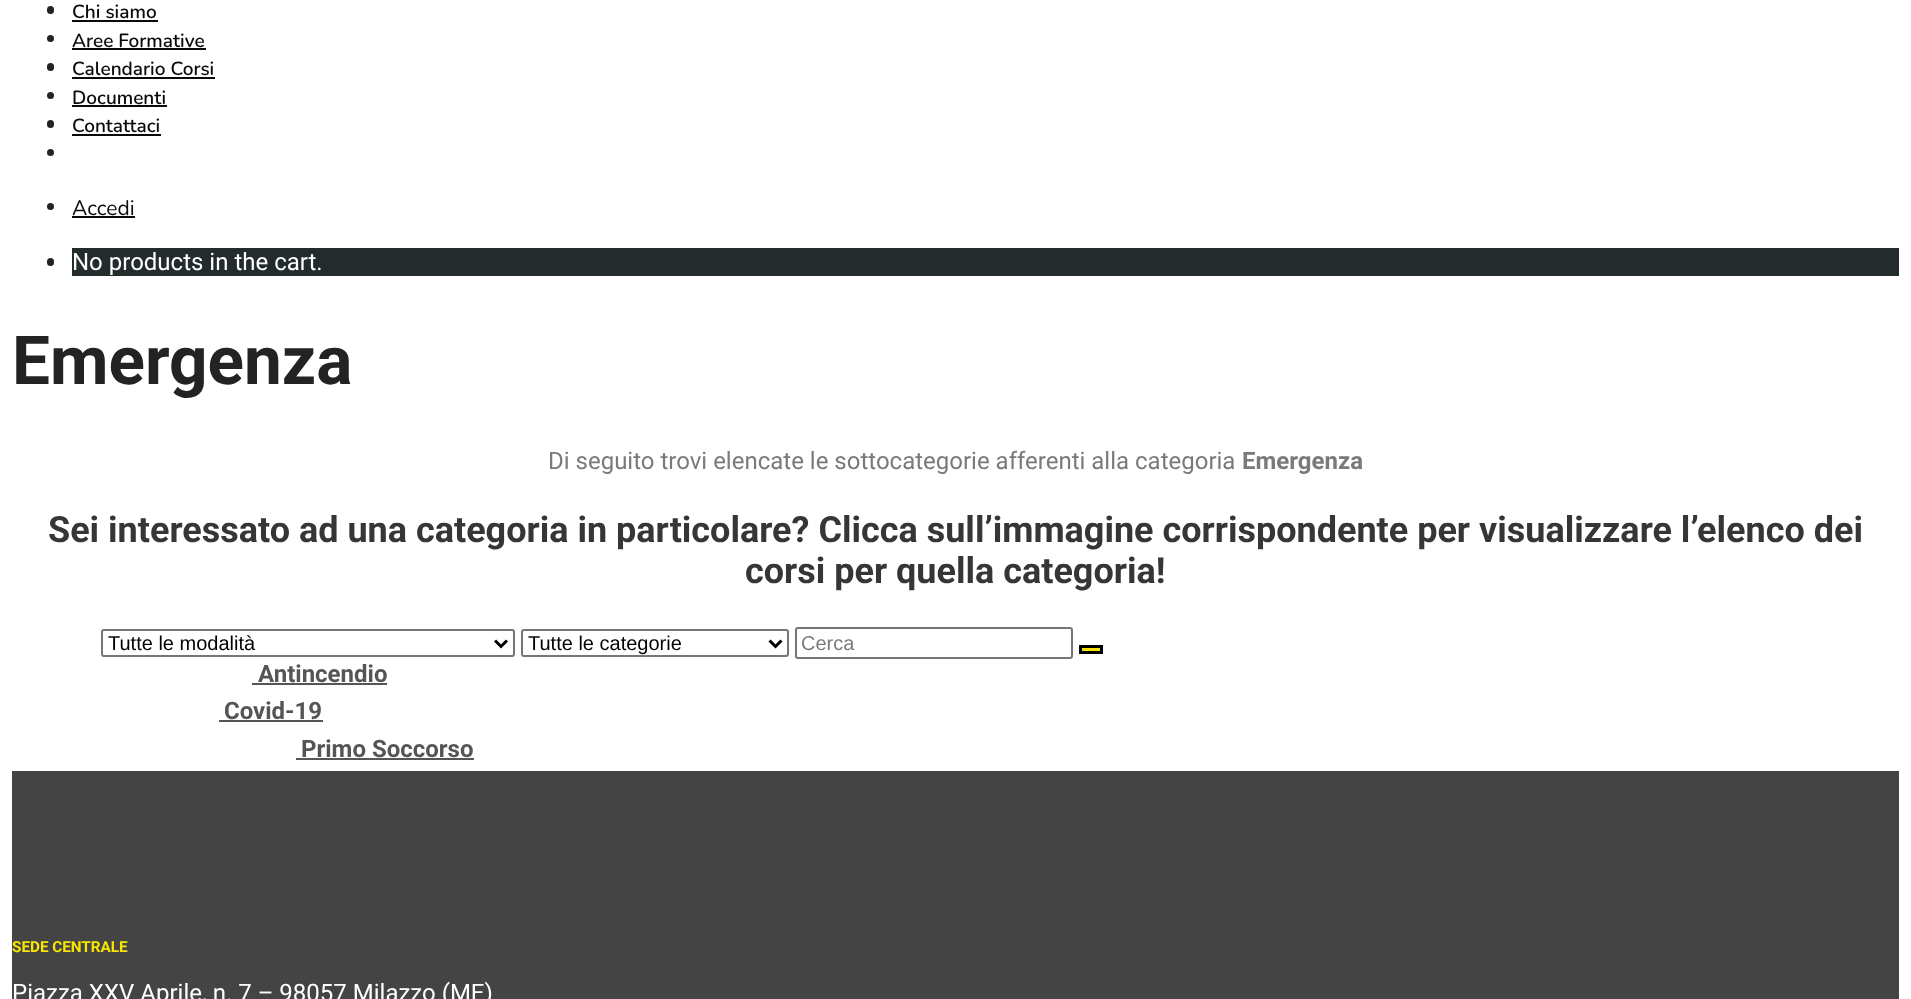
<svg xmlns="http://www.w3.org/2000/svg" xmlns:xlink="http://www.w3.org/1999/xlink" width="1911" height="999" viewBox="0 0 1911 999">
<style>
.cls-1{font:600 19px Nunito;fill:#0a0a0a}
.cls-2{font:21px Nunito;fill:#0a0a0a}
.cls-3{font:24px Roboto;fill:#ffffff}
.cls-4{font:bold 67.5px Roboto;fill:#232323}
.cls-5{font:24px Roboto;fill:#7a7a7a}
.cls-6{font:bold 24px Roboto;fill:#7a7a7a}
.cls-7{font:bold 36px Roboto;fill:#363636}
.cls-8{font:20px Liberation Sans;fill:#000000}
.cls-9{font:20px Liberation Sans;fill:#7a7a7a}
.cls-10{font:bold 24px Roboto;fill:#555555}
.cls-11{font:bold 15.25px Roboto;fill:#f9e401}
</style>
<rect width="100%" height="100%" fill="#ffffff"/>
<rect fill="#232323" x="47" y="6" width="7" height="8" rx="3.5"/>
<rect fill="#0a0a0a" x="72" y="20" width="86" height="2"/>
<circle fill="#232323" cx="50.5" cy="38.5" r="3.5"/>
<rect fill="#0a0a0a" x="72" y="48" width="134" height="2"/>
<rect fill="#232323" x="47" y="63" width="7" height="8" rx="3.5"/>
<rect fill="#0a0a0a" x="72" y="77" width="143" height="2"/>
<circle fill="#232323" cx="50.5" cy="95.5" r="3.5"/>
<rect fill="#0a0a0a" x="72" y="105" width="95" height="2"/>
<rect fill="#232323" x="47" y="120" width="7" height="8" rx="3.5"/>
<rect fill="#0a0a0a" x="72" y="134" width="89" height="2"/>
<circle fill="#232323" cx="50.5" cy="152.5" r="3.5"/>
<circle fill="#232323" cx="50.5" cy="206.5" r="3.5"/>
<rect fill="#0a0a0a" x="72" y="216" width="63" height="2"/>
<rect fill="#232323" x="47" y="258" width="7" height="8" rx="3.5"/>
<rect fill="#232b2d" x="72" y="248" width="1827" height="28"/>
<rect fill="none" stroke="#767676" stroke-width="2" x="102" y="630" width="412" height="26" rx="2"/>
<path fill="none" stroke="#000000" stroke-width="3" d="M495 640.5L501 646.5L507 640.5"/>
<rect fill="none" stroke="#767676" stroke-width="2" x="522" y="630" width="266" height="26" rx="2"/>
<path fill="none" stroke="#000000" stroke-width="3" d="M769.5 640.5L775.5 646.5L781.5 640.5"/>
<rect fill="none" stroke="#767676" stroke-width="2" x="796" y="628" width="276" height="30" rx="2"/>
<rect fill="#f9e401" stroke="#000000" stroke-width="3" x="1080.5" y="646.5" width="21" height="6"/>
<rect fill="#555555" x="252" y="683" width="135" height="2"/>
<rect fill="#555555" x="219" y="720" width="104" height="2"/>
<rect fill="#555555" x="296" y="758" width="178" height="2"/>
<rect fill="#444444" x="12" y="771" width="1887" height="228"/>
<text class="cls-1"><tspan x="72" y="18">Chi siamo</tspan><tspan x="72" y="47">Aree Formative</tspan><tspan x="72" y="75">Calendario Corsi</tspan><tspan x="72" y="104">Documenti</tspan><tspan x="72" y="132">Contattaci</tspan></text>
<text class="cls-2" x="72" y="215">Accedi</text>
<text class="cls-3" x="72" y="270">No products in the cart.</text>
<text class="cls-4" x="12" y="384">Emergenza</text>
<text class="cls-5" x="548" y="469">Di seguito trovi elencate le sottocategorie afferenti alla categoria</text>
<text class="cls-6" x="1242" y="469">Emergenza</text>
<text class="cls-7" x="48" y="542">Sei interessato ad una categoria in particolare? Clicca sull’immagine corrispondente per visualizzare l’elenco dei</text>
<text class="cls-7" x="745" y="583">corsi per quella categoria!</text>
<text class="cls-8" x="108" y="650">Tutte le modalità</text>
<text class="cls-8" x="528" y="650">Tutte le categorie</text>
<text class="cls-9" x="801" y="650">Cerca</text>
<text class="cls-10" x="258" y="682">Antincendio</text>
<text class="cls-10" x="224" y="719">Covid-19</text>
<text class="cls-10" x="301" y="757">Primo Soccorso</text>
<text class="cls-11" x="12" y="952">SEDE CENTRALE</text>
<text class="cls-3" x="12" y="1001">Piazza XXV Aprile, n. 7 – 98057 Milazzo (ME)</text>
</svg>
